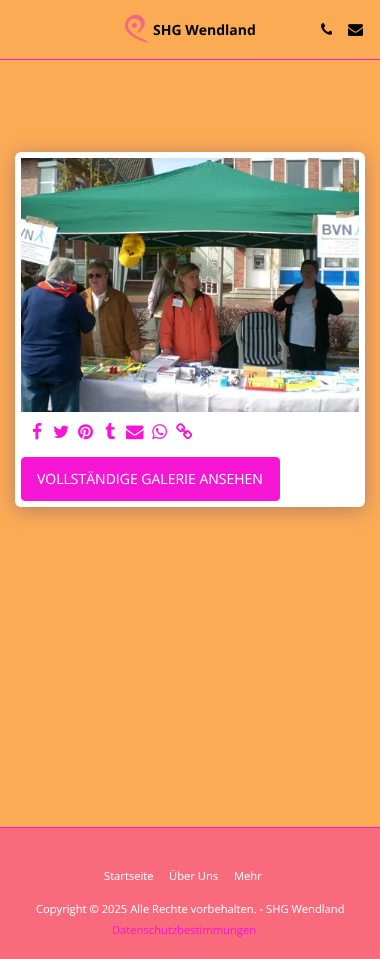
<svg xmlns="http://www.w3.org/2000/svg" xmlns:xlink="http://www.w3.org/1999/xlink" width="380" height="959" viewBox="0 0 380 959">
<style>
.cls-1{font:bold 14px Open Sans;fill:#000000}
.cls-2{font:14px Open Sans;fill:#ffffff}
.cls-3{font:11.2px Open Sans;fill:#ffffff}
.cls-4{font:11.2px Open Sans;fill:#f716d3}
</style>
<rect width="100%" height="100%" fill="#fcab55"/>
<rect fill="#f716d3" x="0" y="59" width="380" height="1"/>
<image xlink:href="image0.png" x="124" y="14" width="25" height="29"/>
<image xlink:href="image1.png" x="321" y="23" width="11" height="12"/>
<image xlink:href="image2.png" x="348" y="24" width="15" height="12"/>
<rect fill="#4d3f7a" fill-opacity="0.4" filter="blur(10px)" x="15" y="155" width="350" height="355" rx="6"/>
<rect fill="#ffffff" x="15" y="152" width="350" height="355" rx="6"/>
<image xlink:href="image3.png" x="21" y="158" width="338" height="254"/>
<image xlink:href="image4.png" x="32" y="423" width="10" height="17"/>
<image xlink:href="image5.png" x="53" y="425" width="16" height="13"/>
<image xlink:href="image6.png" x="78" y="424" width="15" height="16"/>
<image xlink:href="image7.png" x="105" y="423" width="10" height="17"/>
<image xlink:href="image8.png" x="126" y="425" width="18" height="15"/>
<image xlink:href="image9.png" x="152" y="424" width="15" height="16"/>
<image xlink:href="image10.png" x="176" y="423" width="16" height="17"/>
<rect fill="#f716d3" stroke="#f716d3" x="21.5" y="457.5" width="258" height="43" rx="3.5"/>
<rect fill="#f716d3" x="0" y="827" width="380" height="1"/>
<rect fill="#f96a7d" x="0" y="828" width="380" height="131"/>
<text class="cls-1" x="153" y="35">SHG Wendland</text>
<text class="cls-2" x="37" y="484">VOLLSTÄNDIGE GALERIE ANSEHEN</text>
<text class="cls-3" x="104" y="880">Startseite</text>
<text class="cls-3" x="169" y="880">Über Uns</text>
<text class="cls-3" x="234" y="880">Mehr</text>
<text class="cls-3" x="36" y="913">Copyright © 2025 Alle Rechte vorbehalten. - SHG Wendland</text>
<text class="cls-4" x="112" y="934">Datenschutzbestimmungen</text>
</svg>
